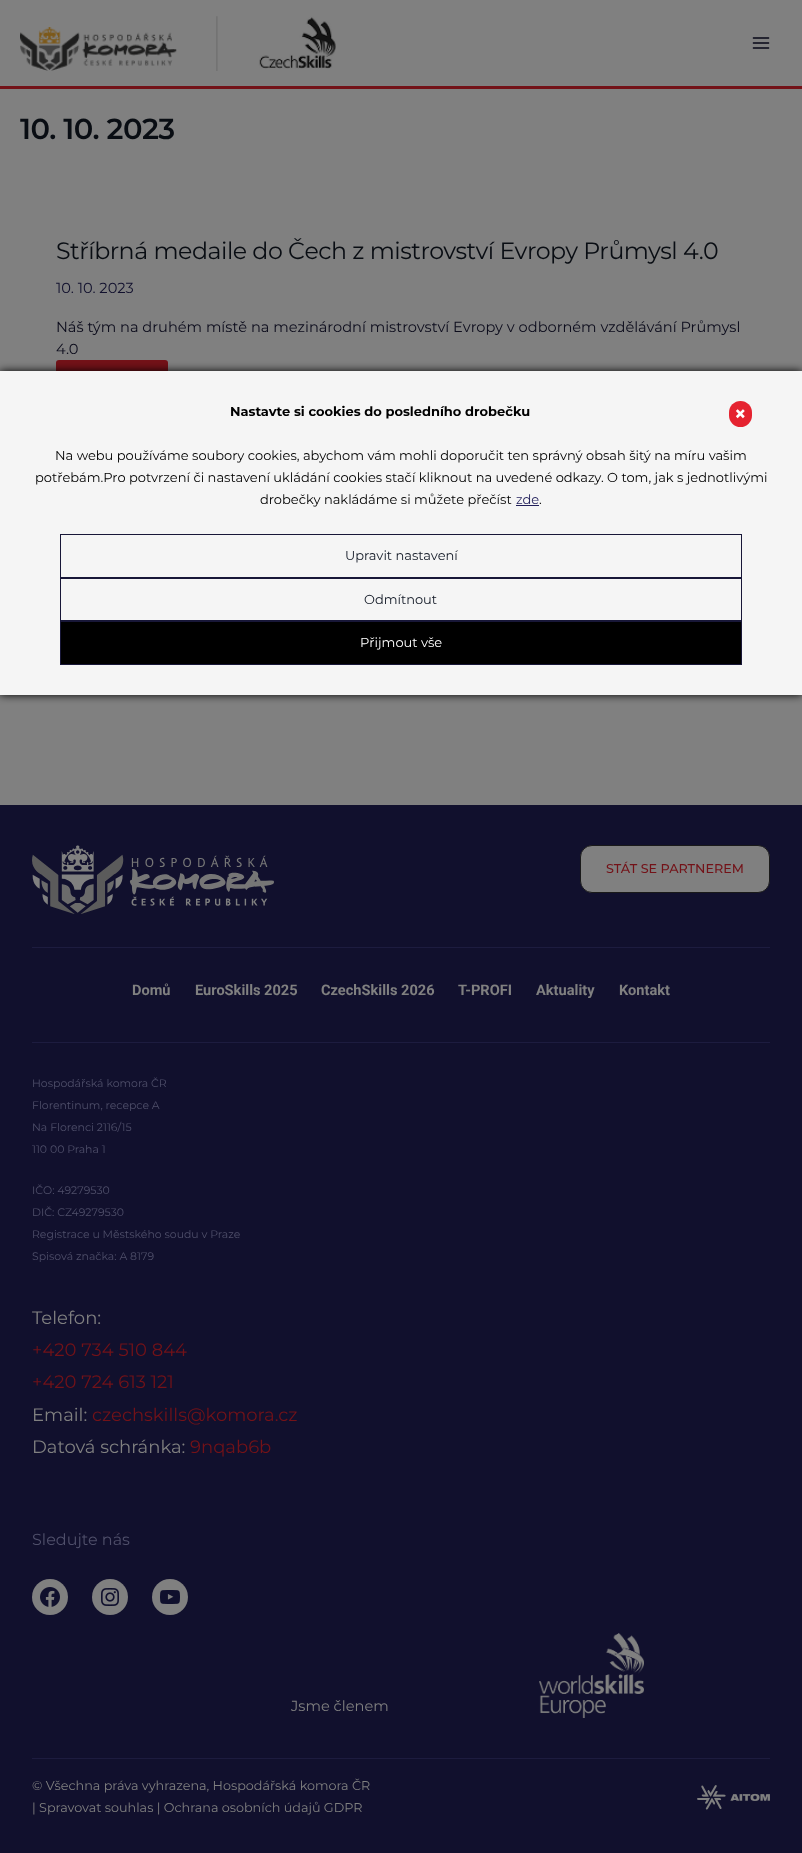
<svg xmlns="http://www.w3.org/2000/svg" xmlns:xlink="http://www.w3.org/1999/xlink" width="802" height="1853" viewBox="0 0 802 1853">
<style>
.cls-1{font:600 29px Montserrat;letter-spacing:-0.5px;fill:#090d13}
.cls-2{font:23.7px Montserrat;letter-spacing:-0.47px;fill:#090d13}
.cls-3{font:14.6px Montserrat;fill:#11102d}
.cls-4{font:14.6px Montserrat;fill:#0c0c1c}
.cls-5{font:500 12.75px Montserrat;fill:#731218}
.cls-6{font:bold 14.6px Roboto;fill:#808080}
.cls-7{font:10.9px Montserrat;fill:#4f4f6a}
.cls-8{font:18px Montserrat;fill:#808080}
.cls-9{font:18px Montserrat;fill:#731218}
.cls-10{font:16px Montserrat;fill:#4f4f6a}
.cls-11{font:14.6px Montserrat;fill:#808080}
.cls-12{font:12.75px Montserrat;fill:#808080}
.cls-13{font:bold 13px Montserrat;fill:#000000}
.cls-14{font:13px Montserrat;fill:#000000}
.cls-15{font:13px Montserrat;fill:#211f5a}
.cls-16{font:13px Montserrat;fill:#121926}
.cls-17{font:13px Montserrat;fill:#ffffff}
.cls-18{font:bold 21px Montserrat;fill:#ffffff}
</style>
<rect width="100%" height="100%" fill="#808080"/>
<rect fill="#731218" x="0" y="86" width="802" height="3"/>
<image xlink:href="image0.png" x="20" y="16" width="316" height="55"/>
<image xlink:href="image1.png" x="752" y="37" width="18" height="12"/>
<rect fill="#731218" x="56" y="360" width="112" height="23" rx="3"/>
<rect fill="#11102d" x="0" y="805" width="802" height="1048"/>
<image xlink:href="image2.png" x="32" y="845" width="242" height="69"/>
<rect fill="#808080" stroke="#1a1a1a" x="580.5" y="845.5" width="189" height="47" rx="11.5"/>
<rect fill="#1d1c3f" x="32" y="947" width="738" height="1"/>
<rect fill="#1d1c3f" x="32" y="1042" width="738" height="1"/>
<circle fill="#808080" cx="50" cy="1597" r="18"/>
<image xlink:href="image3.png" x="40" y="1587" width="20" height="20"/>
<circle fill="#808080" cx="110" cy="1597" r="18"/>
<image xlink:href="image4.png" x="101" y="1588" width="18" height="18"/>
<circle fill="#808080" cx="170" cy="1597" r="18"/>
<image xlink:href="image5.png" x="160" y="1590" width="20" height="14"/>
<image xlink:href="image6.png" x="539" y="1633" width="105" height="85"/>
<rect fill="#1d1c3f" x="32" y="1758" width="738" height="1"/>
<image xlink:href="image7.png" x="697" y="1785" width="73" height="25"/>
<rect fill="#000000" filter="blur(4px)" x="0" y="371" width="802" height="324"/>
<rect fill="#f5f5f5" x="0" y="371" width="802" height="324"/>
<rect fill="#211f5a" x="516" y="505" width="23" height="1"/>
<rect fill="none" stroke="#181738" x="60.5" y="534.5" width="681" height="43"/>
<rect fill="none" stroke="#181738" x="60.5" y="578.5" width="681" height="42"/>
<rect fill="#000000" stroke="#181738" x="60.5" y="621.5" width="681" height="43"/>
<rect fill="#e52330" x="729" y="401" width="23" height="26" rx="11.5"/>
<text class="cls-1" x="20" y="139">10. 10. 2023</text>
<text class="cls-2" x="56" y="259">Stříbrná medaile do Čech z mistrovství Evropy Průmysl 4.0</text>
<text class="cls-3" x="56" y="293">10. 10. 2023</text>
<text class="cls-4"><tspan x="56" y="332">Náš tým na druhém místě na mezinárodní mistrovství Evropy v odborném vzdělávání Průmysl</tspan><tspan x="56" y="354">4.0</tspan></text>
<text class="cls-5" x="606" y="873">STÁT SE PARTNEREM</text>
<text class="cls-6" x="132" y="995">Domů</text>
<text class="cls-6" x="195" y="995">EuroSkills 2025</text>
<text class="cls-6" x="321" y="995">CzechSkills 2026</text>
<text class="cls-6" x="458" y="995">T-PROFI</text>
<text class="cls-6" x="536" y="995">Aktuality</text>
<text class="cls-6" x="619" y="995">Kontakt</text>
<text class="cls-7" x="32" y="1087">Hospodářská komora ČR</text>
<text class="cls-7" x="32" y="1109">Florentinum, recepce A</text>
<text class="cls-7" x="32" y="1131">Na Florenci 2116/15</text>
<text class="cls-7" x="32" y="1153">110 00 Praha 1</text>
<text class="cls-7" x="32" y="1194">IČO: 49279530</text>
<text class="cls-7" x="32" y="1216">DIČ: CZ49279530</text>
<text class="cls-7" x="32" y="1238">Registrace u Městského soudu v Praze</text>
<text class="cls-7" x="32" y="1260">Spisová značka: A 8179</text>
<text class="cls-8" x="32" y="1324">Telefon:</text>
<text class="cls-9"><tspan x="32" y="1356">+420 734 510 844</tspan><tspan x="32" y="1388">+420 724 613 121</tspan></text>
<text class="cls-8" x="32" y="1421">Email:</text>
<text class="cls-9" x="92" y="1421">czechskills@komora.cz</text>
<text class="cls-8" x="32" y="1453">Datová schránka:</text>
<text class="cls-9" x="190" y="1453">9nqab6b</text>
<text class="cls-10" x="32" y="1545">Sledujte nás</text>
<text class="cls-11" x="291" y="1711">Jsme členem</text>
<text class="cls-12"><tspan x="32" y="1790">© Všechna práva vyhrazena, Hospodářská komora ČR</tspan><tspan x="32" y="1812">| Spravovat souhlas | Ochrana osobních údajů GDPR</tspan></text>
<text class="cls-13" x="230" y="416">Nastavte si cookies do posledního drobečku</text>
<text class="cls-14" x="55" y="460">Na webu používáme soubory cookies, abychom vám mohli doporučit ten správný obsah šitý na míru vašim</text>
<text class="cls-14" x="35" y="482">potřebám.Pro potvrzení či nastavení ukládání cookies stačí kliknout na uvedené odkazy. O tom, jak s jednotlivými</text>
<text class="cls-14" x="260" y="504">drobečky nakládáme si můžete přečíst</text>
<text class="cls-15" x="516" y="504">zde</text>
<text class="cls-14" x="539" y="504">.</text>
<text class="cls-16" x="345" y="560">Upravit nastavení</text>
<text class="cls-16" x="364" y="604">Odmítnout</text>
<text class="cls-17" x="360" y="647">Přijmout vše</text>
<text class="cls-18" x="734" y="421">×</text>
</svg>
